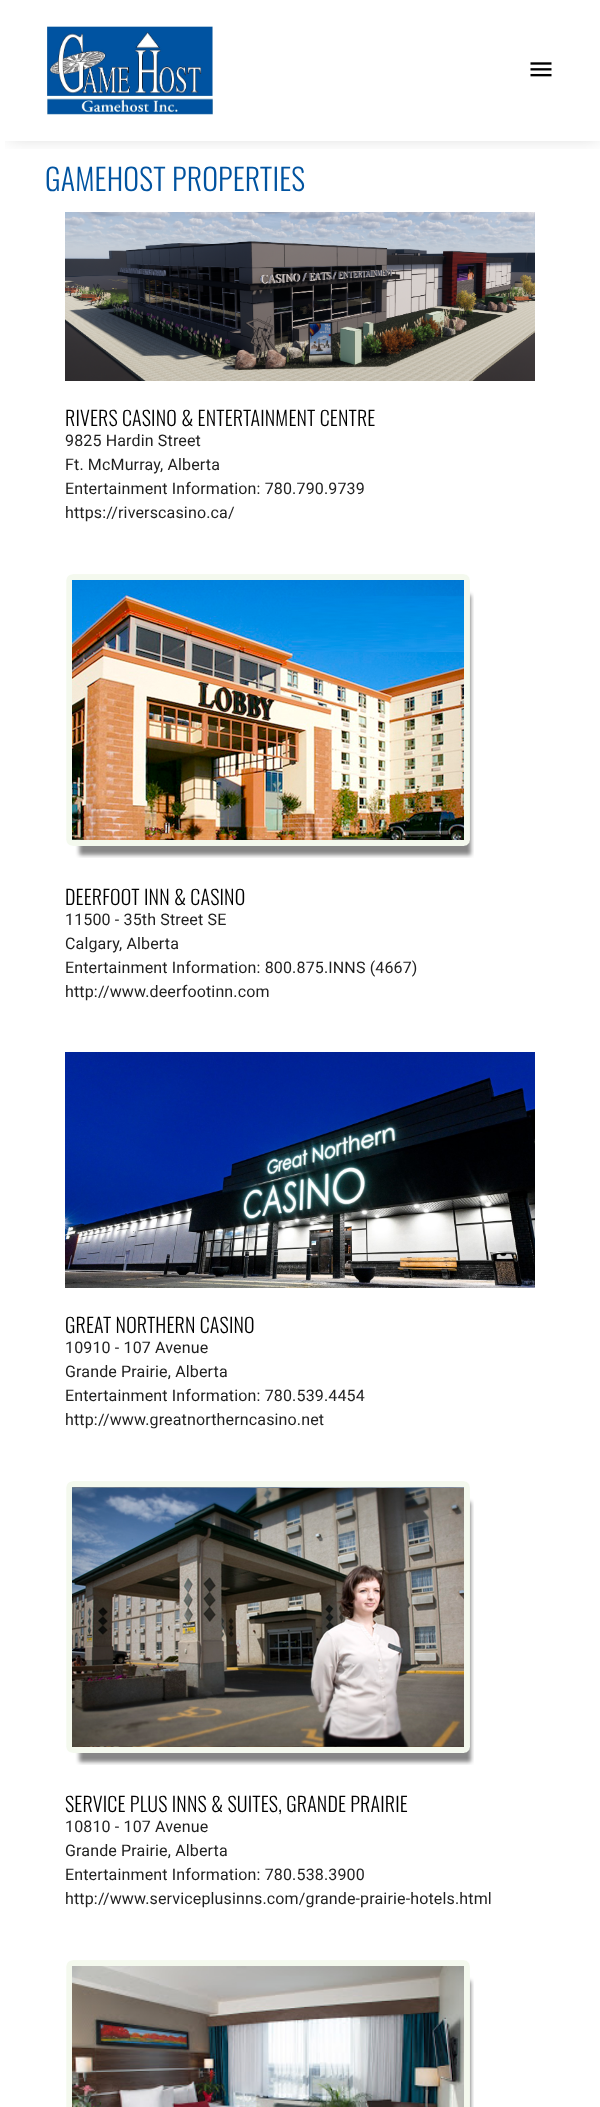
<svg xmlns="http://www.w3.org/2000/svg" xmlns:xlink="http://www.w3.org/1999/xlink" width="600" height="2107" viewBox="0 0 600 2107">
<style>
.cls-1{font:300 30px Oswald;letter-spacing:0.15px;fill:#0053a0}
.cls-2{font:300 20px Oswald;letter-spacing:0.15px;fill:#000000}
.cls-3{font:16px Roboto;letter-spacing:0.15px;fill:#212121}
</style>
<defs>
<clipPath id="clip1"><rect x="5" y="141" width="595" height="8"/></clipPath>
</defs>
<rect width="100%" height="100%" fill="#ffffff"/>
<g clip-path="url(#clip1)">
<rect fill="#000000" fill-opacity="0.2" filter="blur(10px)" x="9" y="5" width="590" height="131"/>
</g>
<image xlink:href="image0.png" x="47" y="26" width="166" height="89"/>
<image xlink:href="image1.png" x="530" y="62" width="22" height="15"/>
<image xlink:href="image2.png" x="65" y="212" width="470" height="169"/>
<image xlink:href="image3.png" x="66" y="574" width="408" height="284"/>
<image xlink:href="image4.png" x="65" y="1052" width="470" height="236"/>
<image xlink:href="image5.png" x="66" y="1481" width="408" height="284"/>
<image xlink:href="image6.png" x="66" y="1960" width="408" height="147"/>
<text class="cls-1" x="45" y="191">GAMEHOST PROPERTIES</text>
<text class="cls-2" x="65" y="426">RIVERS CASINO &amp; ENTERTAINMENT CENTRE</text>
<text class="cls-3"><tspan x="65" y="446">9825 Hardin Street</tspan><tspan x="65" y="470">Ft. McMurray, Alberta</tspan><tspan x="65" y="494">Entertainment Information: 780.790.9739</tspan><tspan x="65" y="518">https://riverscasino.ca/</tspan></text>
<text class="cls-2" x="65" y="905">DEERFOOT INN &amp; CASINO</text>
<text class="cls-3"><tspan x="65" y="925">11500 - 35th Street SE</tspan><tspan x="65" y="949">Calgary, Alberta</tspan><tspan x="65" y="973">Entertainment Information: 800.875.INNS (4667)</tspan><tspan x="65" y="997">http://www.deerfootinn.com</tspan></text>
<text class="cls-2" x="65" y="1333">GREAT NORTHERN CASINO</text>
<text class="cls-3"><tspan x="65" y="1353">10910 - 107 Avenue</tspan><tspan x="65" y="1377">Grande Prairie, Alberta</tspan><tspan x="65" y="1401">Entertainment Information: 780.539.4454</tspan><tspan x="65" y="1425">http://www.greatnortherncasino.net</tspan></text>
<text class="cls-2" x="65" y="1812">SERVICE PLUS INNS &amp; SUITES, GRANDE PRAIRIE</text>
<text class="cls-3"><tspan x="65" y="1832">10810 - 107 Avenue</tspan><tspan x="65" y="1856">Grande Prairie, Alberta</tspan><tspan x="65" y="1880">Entertainment Information: 780.538.3900</tspan><tspan x="65" y="1904">http://www.serviceplusinns.com/grande-prairie-hotels.html</tspan></text>
</svg>
